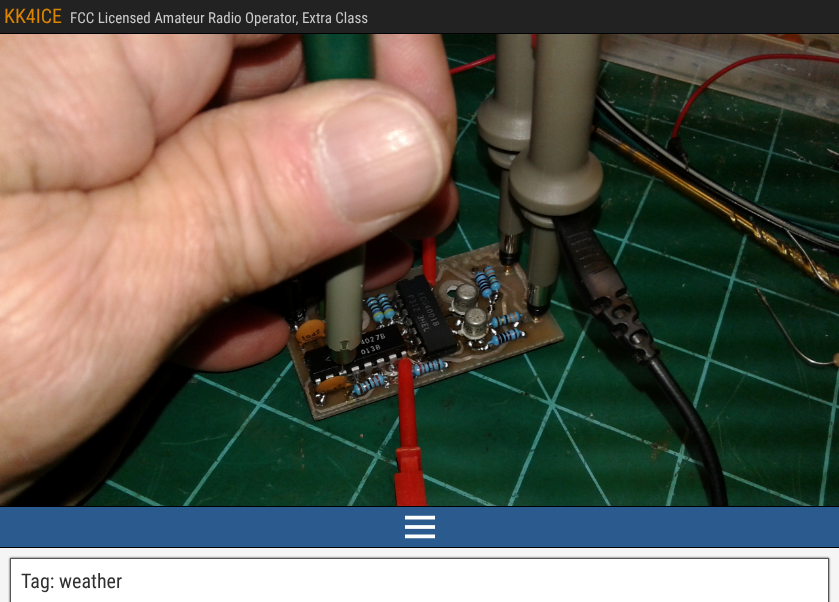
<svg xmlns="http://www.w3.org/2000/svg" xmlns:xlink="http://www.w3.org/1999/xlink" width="839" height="602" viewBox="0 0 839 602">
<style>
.cls-1{font:20px Roboto Condensed;fill:#dc8300}
.cls-2{font:15px Roboto Condensed;fill:#cccccc}
.cls-3{font:20px Roboto Condensed;fill:#303030}
</style>
<rect width="100%" height="100%" fill="#222222"/>
<rect fill="#000000" x="0" y="33" width="839" height="1"/>
<rect fill="#000000" x="0" y="506" width="839" height="1"/>
<image xlink:href="image0.png" x="0" y="34" width="839" height="472"/>
<rect fill="#2a5a8e" x="0" y="507" width="839" height="40"/>
<rect fill="#000000" x="0" y="547" width="839" height="1"/>
<image xlink:href="image1.png" x="405" y="515" width="30" height="24"/>
<rect fill="#f5f5f5" x="0" y="548" width="839" height="54"/>
<rect fill="#333333" filter="blur(1px)" x="10" y="558" width="819" height="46"/>
<rect fill="#ffffff" stroke="#555555" x="10.5" y="558.5" width="818" height="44"/>
<text class="cls-1" x="4" y="23">KK4ICE</text>
<text class="cls-2" x="70" y="23">FCC Licensed Amateur Radio Operator, Extra Class</text>
<text class="cls-3" x="21" y="588">Tag: weather</text>
</svg>
